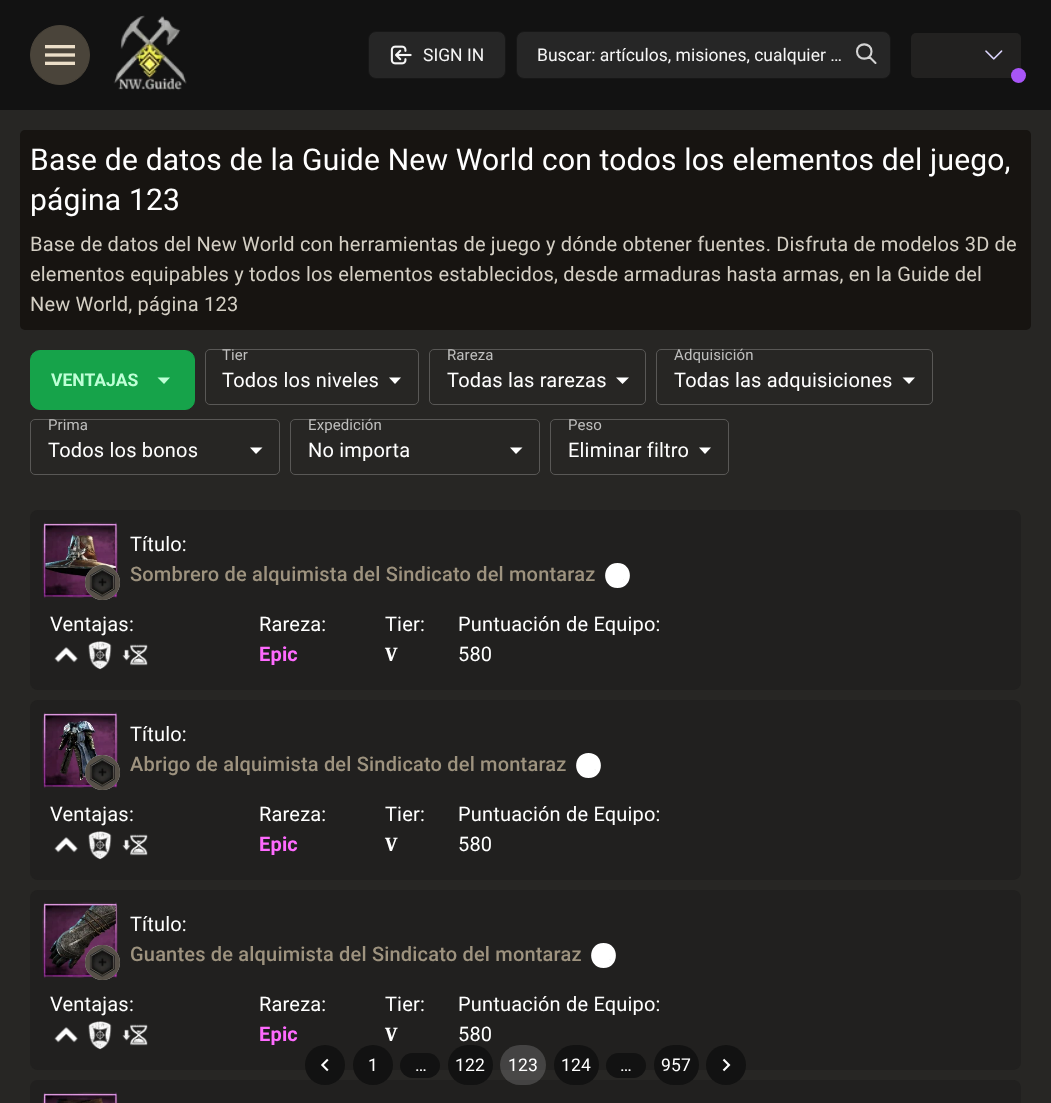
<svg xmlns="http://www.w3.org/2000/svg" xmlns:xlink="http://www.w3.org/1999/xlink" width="1051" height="1103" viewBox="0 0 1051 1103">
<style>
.cls-1{font:17.5px Roboto;fill:#f5f5f5}
.cls-2{font:30px Roboto;letter-spacing:0.19px;fill:#ffffff}
.cls-3{font:20px Roboto;letter-spacing:0.19px;fill:#d4cfc4}
.cls-4{font:bold 17.5px Roboto;fill:#beffd6}
.cls-5{font:15px Roboto;letter-spacing:0.1px;fill:#bfbfbe}
.cls-6{font:20px Roboto;letter-spacing:0.19px;fill:#ffffff}
.cls-7{font:500 20px Roboto;letter-spacing:0.19px;fill:#9e937f}
.cls-8{font:bold 20px Roboto;letter-spacing:0.19px;fill:#ff6aff}
.cls-9{font:bold 20px Caladea;letter-spacing:0.19px;fill:#ffffff}
.cls-10{font:17.5px Roboto;letter-spacing:0.19px;fill:#ffffff}
</style>
<rect width="100%" height="100%" fill="#272624"/>
<rect fill="#121212" x="0" y="0" width="1051" height="110"/>
<circle fill="#4a443a" stroke="#4a443a" cx="60" cy="55" r="29.5"/>
<image xlink:href="image0.png" x="45" y="45" width="30" height="20"/>
<image xlink:href="image1.png" x="113" y="15" width="74" height="76"/>
<rect fill="#262626" stroke="#171717" x="368.5" y="31.5" width="137" height="47" rx="7.5"/>
<image xlink:href="image2.png" x="390" y="45" width="22" height="20"/>
<rect fill="#262626" stroke="#171717" x="516.5" y="31.5" width="374" height="47" rx="7.5"/>
<path fill="none" stroke="#d4d4d4" stroke-width="2.1" stroke-linecap="round" stroke-linejoin="round" d="M875.5 63L869.5 57M871.5 51.5C871.5 61 857 61 857 51.5C857 42 871.5 42 871.5 51.5Z"/>
<rect fill="#272624" fill-opacity="0.8" x="911" y="33" width="110" height="45" rx="5"/>
<image xlink:href="image3.png" x="985" y="50" width="18" height="10"/>
<circle fill="#a855f7" cx="1018.5" cy="75.5" r="7.5"/>
<rect fill="#171411" x="20" y="130" width="1011" height="200" rx="5"/>
<rect fill="#16a34a" stroke="#16a34a" x="30.5" y="350.5" width="164" height="59" rx="9.5"/>
<path fill="#beffd6" d="M157.5 377.5L164 384L170 377.5Z"/>
<path fill="#ffffff" d="M389 377.5L395 384L401 377.5Z"/>
<rect fill="none" stroke="#595856" x="205.5" y="349.5" width="213" height="55" rx="4.5"/>
<path fill="#ffffff" d="M616 377.5L622.5 384L629 377.5Z"/>
<rect fill="none" stroke="#595856" x="429.5" y="349.5" width="216" height="55" rx="4.5"/>
<path fill="#ffffff" d="M902.5 377.5L909 384L915 377.5Z"/>
<rect fill="none" stroke="#595856" x="656.5" y="349.5" width="276" height="55" rx="4.5"/>
<path fill="#ffffff" d="M250 447.5L256 454L262.5 447.5Z"/>
<rect fill="none" stroke="#595856" x="30.5" y="419.5" width="249" height="55" rx="4.5"/>
<path fill="#ffffff" d="M510 447.5L516 454L522.5 447.5Z"/>
<rect fill="none" stroke="#595856" x="290.5" y="419.5" width="249" height="55" rx="4.5"/>
<path fill="#ffffff" d="M699 447.5L705 454L711 447.5Z"/>
<rect fill="none" stroke="#595856" x="550.5" y="419.5" width="178" height="55" rx="4.5"/>
<rect fill="#21201f" x="30" y="510" width="991" height="180" rx="8"/>
<image xlink:href="image4.png" x="42" y="522" width="76" height="76"/>
<circle fill="#d4d4d4" fill-opacity="0.9" cx="102.5" cy="582.5" r="17.5"/>
<path fill="#4a443a" fill-opacity="0.9" d="M102.5 565C93 565 85 573 85 582.5C85 592 93 600 102.5 600C112 600 120 592 120 582.5C120 573 112 565 102.5 565Z"/>
<image xlink:href="image5.png" x="89" y="568" width="27" height="29"/>
<path fill="#ffffff" d="M617.5 563C634 563 634 588 617.5 588C601 588 601 563 617.5 563Z"/>
<rect fill="#f7f7f7" x="623" y="579" width="1" height="1"/>
<image xlink:href="image6.png" x="54" y="647" width="24" height="16"/>
<image xlink:href="image7.png" x="88" y="641" width="24" height="29"/>
<image xlink:href="image8.png" x="122" y="644" width="26" height="22"/>
<rect fill="#21201f" x="30" y="700" width="991" height="180" rx="8"/>
<image xlink:href="image9.png" x="42" y="712" width="76" height="76"/>
<circle fill="#d4d4d4" fill-opacity="0.9" cx="102.5" cy="772.5" r="17.5"/>
<path fill="#4a443a" fill-opacity="0.9" d="M102.5 755C93 755 85 763 85 772.5C85 782 93 790 102.5 790C112 790 120 782 120 772.5C120 763 112 755 102.5 755Z"/>
<image xlink:href="image10.png" x="89" y="758" width="27" height="29"/>
<path fill="#ffffff" d="M588.5 753C605 753 605 778 588.5 778C572 778 572 753 588.5 753Z"/>
<image xlink:href="image11.png" x="594" y="769" width="2" height="2"/>
<image xlink:href="image6.png" x="54" y="837" width="24" height="16"/>
<image xlink:href="image7.png" x="88" y="831" width="24" height="29"/>
<image xlink:href="image8.png" x="122" y="834" width="26" height="22"/>
<rect fill="#21201f" x="30" y="890" width="991" height="180" rx="8"/>
<image xlink:href="image12.png" x="42" y="902" width="76" height="76"/>
<circle fill="#d4d4d4" fill-opacity="0.9" cx="102.5" cy="962.5" r="17.5"/>
<path fill="#4a443a" fill-opacity="0.9" d="M102.5 945C93 945 85 953 85 962.5C85 972 93 980 102.5 980C112 980 120 972 120 962.5C120 953 112 945 102.5 945Z"/>
<image xlink:href="image13.png" x="89" y="948" width="27" height="29"/>
<path fill="#ffffff" d="M603.5 943C620 943 620 968 603.5 968C587 968 587 943 603.5 943Z"/>
<image xlink:href="image11.png" x="609" y="959" width="2" height="2"/>
<image xlink:href="image6.png" x="54" y="1027" width="24" height="16"/>
<image xlink:href="image7.png" x="88" y="1021" width="24" height="29"/>
<image xlink:href="image8.png" x="122" y="1024" width="26" height="22"/>
<path fill="#21201f" d="M38 1080H1013C1017.5 1080 1021 1083.5 1021 1088V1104H30V1088C30 1083.5 33.5 1080 38 1080Z"/>
<image xlink:href="image14.png" x="42" y="1092" width="76" height="11"/>
<circle fill="#121212" cx="325" cy="1065" r="20"/>
<image xlink:href="image15.png" x="321" y="1058" width="8" height="14"/>
<circle fill="#121212" cx="373" cy="1065" r="20"/>
<rect fill="#121212" x="400" y="1053" width="40" height="25" rx="12.5"/>
<rect fill="#121212" x="448" y="1045" width="45" height="40" rx="20"/>
<rect fill="#ffffff" fill-opacity="0.16" x="500" y="1045" width="46" height="40" rx="20"/>
<rect fill="#121212" x="554" y="1045" width="45" height="40" rx="20"/>
<rect fill="#121212" x="606" y="1053" width="40" height="25" rx="12.5"/>
<rect fill="#121212" x="654" y="1045" width="45" height="40" rx="20"/>
<circle fill="#121212" cx="726" cy="1065" r="20"/>
<image xlink:href="image16.png" x="722" y="1058" width="9" height="14"/>
<text class="cls-1" x="423" y="61">SIGN IN</text>
<text class="cls-1" x="537" y="61">Buscar: artículos, misiones, cualquier …</text>
<text class="cls-2"><tspan x="30" y="170">Base de datos de la Guide New World con todos los elementos del juego,</tspan><tspan x="30" y="210">página 123</tspan></text>
<text class="cls-3"><tspan x="30" y="251">Base de datos del New World con herramientas de juego y dónde obtener fuentes. Disfruta de modelos 3D de</tspan><tspan x="30" y="281">elementos equipables y todos los elementos establecidos, desde armaduras hasta armas, en la Guide del</tspan><tspan x="30" y="311">New World, página 123</tspan></text>
<text class="cls-4" x="51" y="386">VENTAJAS</text>
<text class="cls-5" x="222" y="360">Tier</text>
<text class="cls-6" x="222" y="387">Todos los niveles</text>
<text class="cls-5" x="447" y="360">Rareza</text>
<text class="cls-6" x="447" y="387">Todas las rarezas</text>
<text class="cls-5" x="674" y="360">Adquisición</text>
<text class="cls-6" x="674" y="387">Todas las adquisiciones</text>
<text class="cls-5" x="48" y="430">Prima</text>
<text class="cls-6" x="48" y="457">Todos los bonos</text>
<text class="cls-5" x="308" y="430">Expedición</text>
<text class="cls-6" x="308" y="457">No importa</text>
<text class="cls-5" x="568" y="430">Peso</text>
<text class="cls-6" x="568" y="457">Eliminar filtro</text>
<text class="cls-6" x="130" y="551">Título:</text>
<text class="cls-7" x="130" y="581">Sombrero de alquimista del Sindicato del montaraz</text>
<text class="cls-6" x="50" y="631">Ventajas:</text>
<text class="cls-6" x="259" y="631">Rareza:</text>
<text class="cls-8" x="259" y="661">Epic</text>
<text class="cls-6" x="385" y="631">Tier:</text>
<text class="cls-9" x="385" y="661">V</text>
<text class="cls-6"><tspan x="458" y="631">Puntuación de Equipo:</tspan><tspan x="458" y="661">580</tspan></text>
<text class="cls-6" x="130" y="741">Título:</text>
<text class="cls-7" x="130" y="771">Abrigo de alquimista del Sindicato del montaraz</text>
<text class="cls-6" x="50" y="821">Ventajas:</text>
<text class="cls-6" x="259" y="821">Rareza:</text>
<text class="cls-8" x="259" y="851">Epic</text>
<text class="cls-6" x="385" y="821">Tier:</text>
<text class="cls-9" x="385" y="851">V</text>
<text class="cls-6"><tspan x="458" y="821">Puntuación de Equipo:</tspan><tspan x="458" y="851">580</tspan></text>
<text class="cls-6" x="130" y="931">Título:</text>
<text class="cls-7" x="130" y="961">Guantes de alquimista del Sindicato del montaraz</text>
<text class="cls-6" x="50" y="1011">Ventajas:</text>
<text class="cls-6" x="259" y="1011">Rareza:</text>
<text class="cls-8" x="259" y="1041">Epic</text>
<text class="cls-6" x="385" y="1011">Tier:</text>
<text class="cls-9" x="385" y="1041">V</text>
<text class="cls-6"><tspan x="458" y="1011">Puntuación de Equipo:</tspan><tspan x="458" y="1041">580</tspan></text>
<text class="cls-10" x="368" y="1071">1</text>
<text class="cls-10" x="415" y="1071">…</text>
<text class="cls-10" x="455" y="1071">122</text>
<text class="cls-10" x="508" y="1071">123</text>
<text class="cls-10" x="561" y="1071">124</text>
<text class="cls-10" x="620" y="1071">…</text>
<text class="cls-10" x="661" y="1071">957</text>
</svg>
